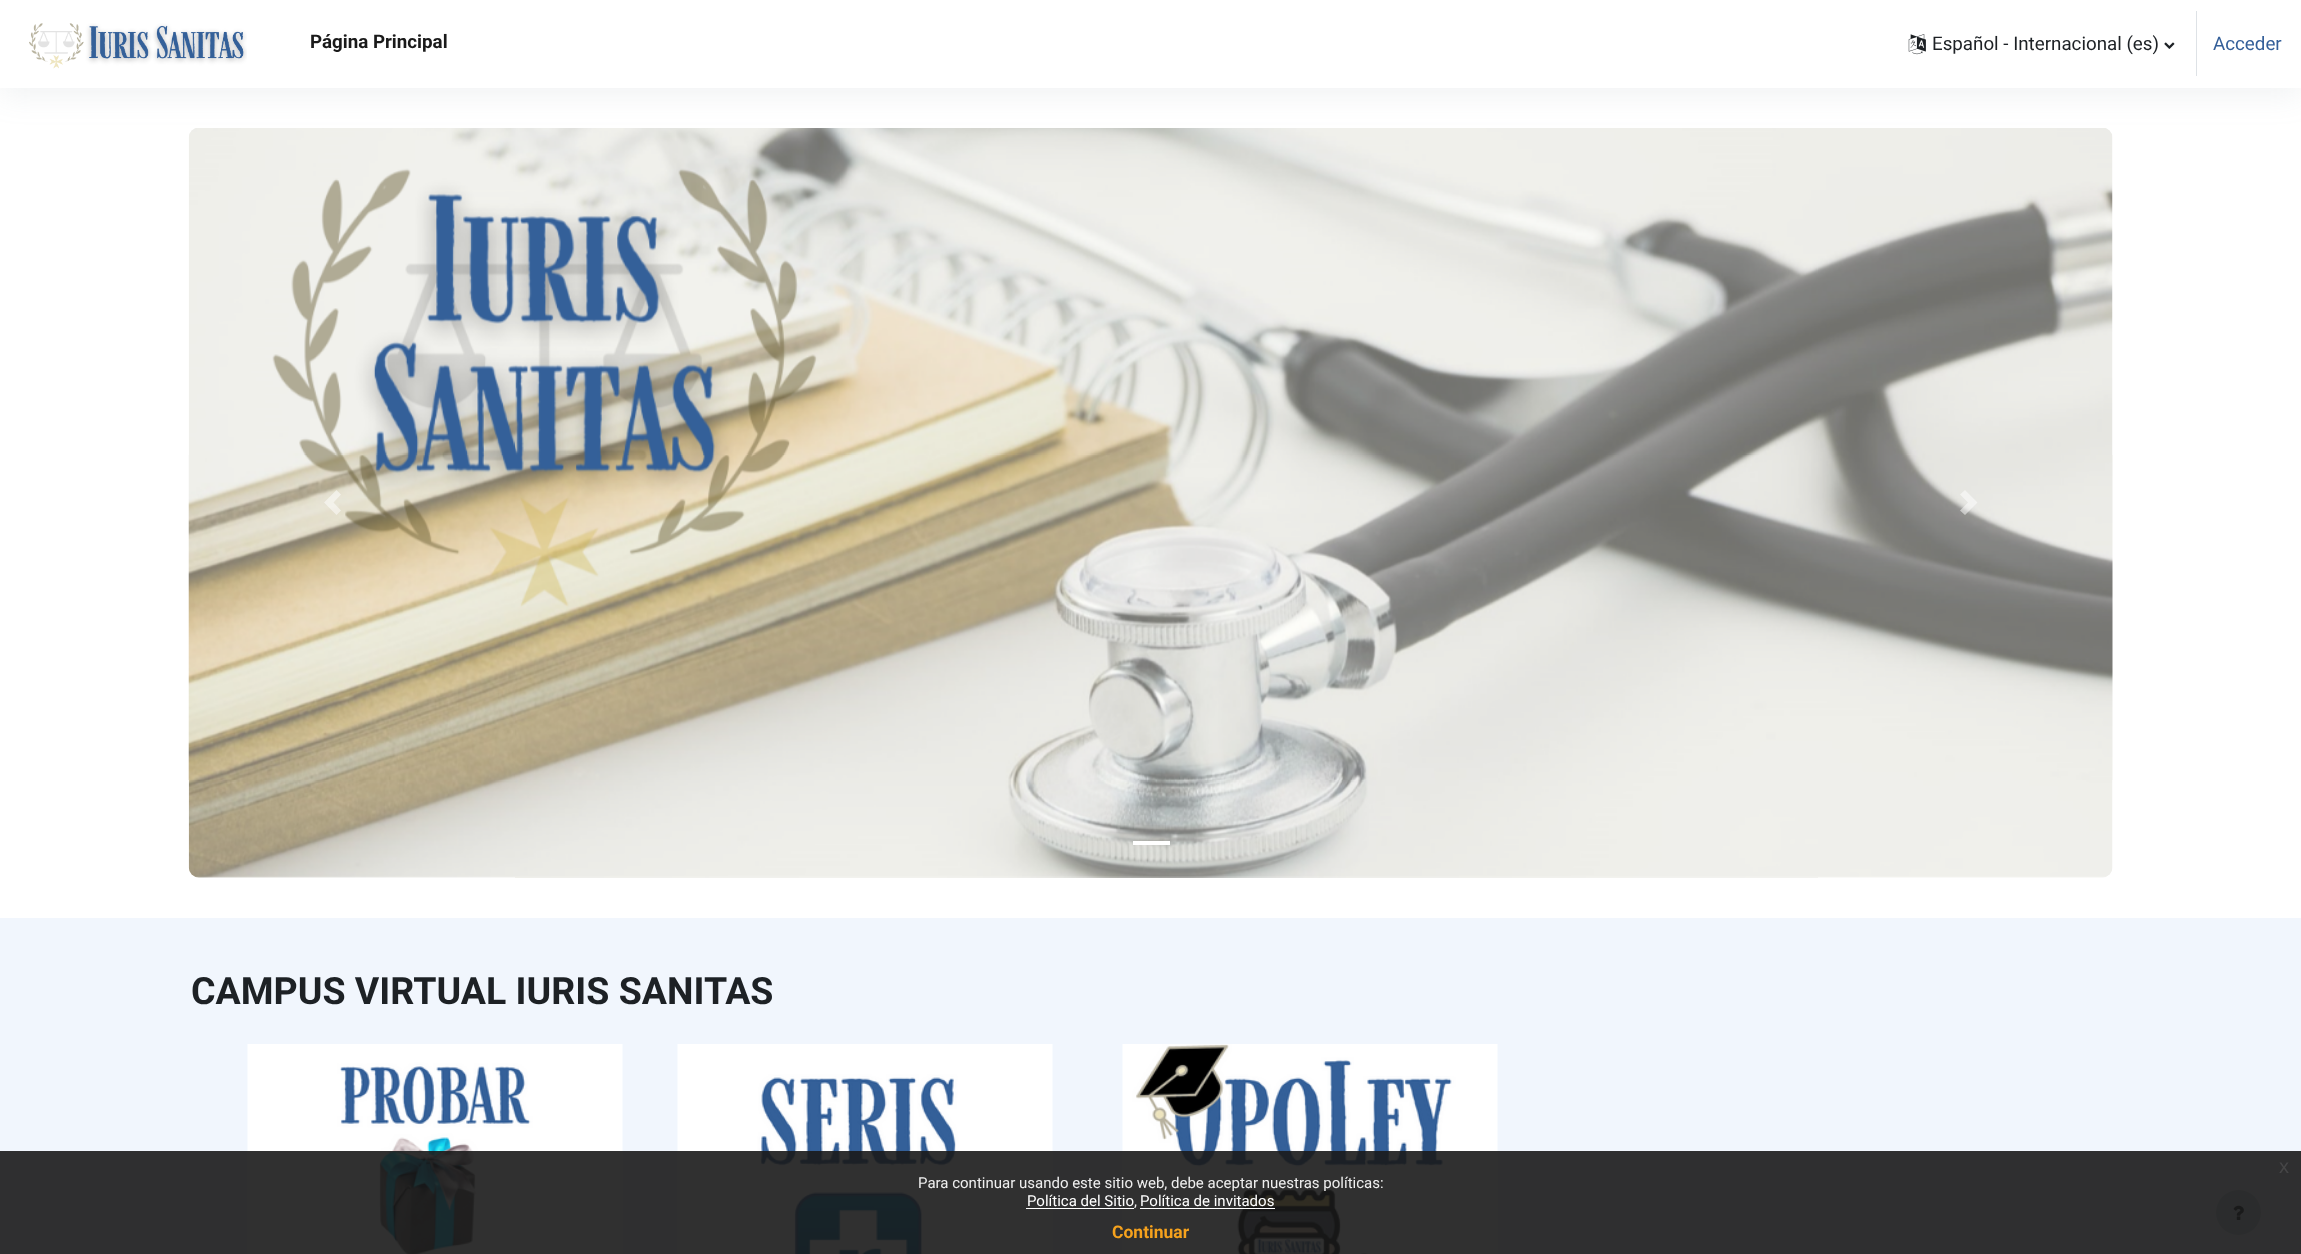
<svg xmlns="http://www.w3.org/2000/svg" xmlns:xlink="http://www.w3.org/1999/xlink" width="2301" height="1254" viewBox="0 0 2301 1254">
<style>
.cls-1{font:bold 18.75px Roboto;fill:#1a1a1a}
.cls-2{font:18.75px Roboto;fill:#1d2125}
.cls-3{font:18.75px Roboto;fill:#345f99}
.cls-4{font:bold 37.5px Roboto;fill:#1d2125}
.cls-5{font:20px Liberation Sans;fill:#464647}
.cls-6{font:15px Roboto;fill:#efefef}
.cls-7{font:15px Roboto;fill:#ffffff}
.cls-8{font:bold 17.5px Roboto;fill:#f6a21d}
</style>
<rect width="100%" height="100%" fill="#ffffff"/>
<image xlink:href="image3.png" x="188" y="128" width="1925" height="750"/>
<rect fill="#8c98a4" fill-opacity="0.13" filter="blur(15px)" x="0" y="8" width="2301" height="87"/>
<rect fill="#ffffff" x="0" y="0" width="2301" height="88"/>
<image xlink:href="image0.png" x="29" y="23" width="218" height="46"/>
<image xlink:href="image1.png" x="1908" y="34" width="18" height="21"/>
<image xlink:href="image2.png" x="2164" y="42" width="11" height="7"/>
<rect fill="#dee2e6" x="2196" y="11" width="1" height="65"/>
<path fill="#ffffff" fill-opacity="0.5" d="M336.5 490L324 502.5L336.5 515L341 510.5L333.5 502.5L341 494.5Z"/>
<path fill="#ffffff" fill-opacity="0.5" d="M1965 490L1960 494.5L1968 502.5L1960 510.5L1965 515L1977.5 502.5Z"/>
<rect fill="#ffffff" x="1133" y="841" width="37" height="4"/>
<rect fill="#f1f6fd" x="0" y="918" width="2301" height="336"/>
<image xlink:href="image4.png" x="247" y="1044" width="376" height="210"/>
<image xlink:href="image5.png" x="677" y="1044" width="376" height="210"/>
<image xlink:href="image6.png" x="1122" y="1044" width="376" height="210"/>
<circle fill="#ced4da" cx="2238.5" cy="1212.5" r="22.5"/>
<image xlink:href="image7.png" x="2233" y="1205" width="11" height="15"/>
<rect fill="#191919" fill-opacity="0.9" x="0" y="1151" width="2301" height="103"/>
<rect fill="#ffffff" x="1026" y="1208" width="108" height="1"/>
<rect fill="#ffffff" x="1140" y="1208" width="135" height="1"/>
<text class="cls-1" x="310" y="48">Página Principal</text>
<text class="cls-2" x="1932" y="50">Español - Internacional (es)</text>
<text class="cls-3" x="2213" y="50">Acceder</text>
<text class="cls-4" x="191" y="1004">CAMPUS VIRTUAL IURIS SANITAS</text>
<text class="cls-5" x="2279" y="1173">x</text>
<text class="cls-6" x="918" y="1188">Para continuar usando este sitio web, debe aceptar nuestras políticas:</text>
<text class="cls-7" x="1027" y="1206">Política del Sitio</text>
<text class="cls-6" x="1134" y="1206">,</text>
<text class="cls-7" x="1140" y="1206">Política de invitados</text>
<text class="cls-8" x="1112" y="1238">Continuar</text>
</svg>
